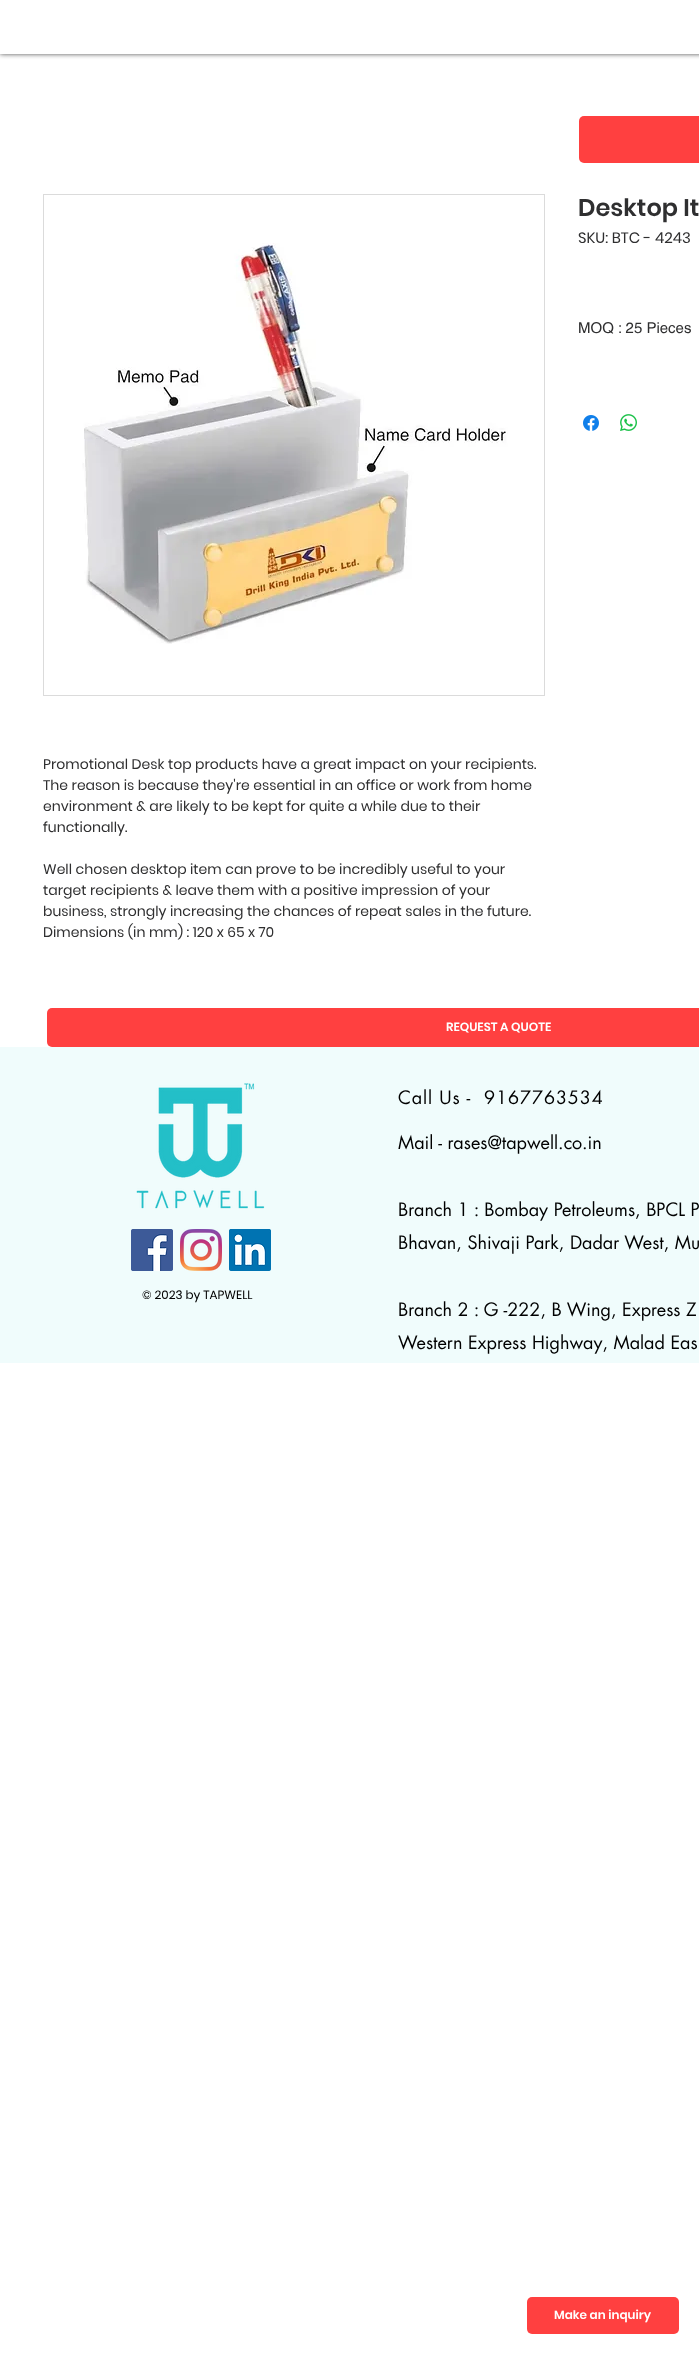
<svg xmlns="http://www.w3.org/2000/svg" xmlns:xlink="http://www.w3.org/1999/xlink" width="699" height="2354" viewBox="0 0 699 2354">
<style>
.cls-1{font:600 24px Poppins;fill:#2f2f30}
.cls-2{font:15px Poppins;fill:#2f2f30}
.cls-3{font:15px helvetica;fill:#2f2f30}
.cls-4{font:14px Poppins;fill:#2f2f30}
.cls-5{font:600 12px Poppins;fill:#ffffff}
.cls-6{font:18px futura;letter-spacing:0.9px;fill:#000000}
.cls-7{font:18px futura;fill:#000000}
.cls-8{font:12px Poppins;fill:#000000}
</style>
<rect width="100%" height="100%" fill="#ffffff"/>
<rect fill="#000000" fill-opacity="0.7" filter="blur(2.5px)" x="0" y="0" width="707" height="54"/>
<rect fill="#ffffff" x="0" y="0" width="699" height="54"/>
<rect fill="#ff4040" x="579" y="116" width="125" height="47" rx="5"/>
<image xlink:href="image0.png" x="583" y="415" width="16" height="16"/>
<image xlink:href="image1.png" x="620" y="414" width="17" height="17"/>
<rect fill="none" stroke="#dbdbdb" x="43.5" y="194.5" width="501" height="501"/>
<image xlink:href="image2.png" x="82" y="243" width="426" height="401"/>
<rect fill="#ff4040" x="47" y="1008" width="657" height="39" rx="5"/>
<rect fill="#f0fcfc" x="0" y="1047" width="699" height="316"/>
<image xlink:href="image3.png" x="136" y="1083" width="129" height="126"/>
<image xlink:href="image4.png" x="131" y="1229" width="42" height="42"/>
<image xlink:href="image5.png" x="180" y="1229" width="42" height="42"/>
<image xlink:href="image6.png" x="229" y="1229" width="42" height="42"/>
<rect fill="#ff4040" x="527" y="2297" width="152" height="37" rx="5"/>
<text class="cls-1" x="578" y="216">Desktop It</text>
<text class="cls-2" x="578" y="243">SKU: BTC - 4243</text>
<text class="cls-3" x="578" y="333">MOQ : 25 Pieces</text>
<text class="cls-4"><tspan x="43" y="769">Promotional Desk top products have a great impact on your recipients.</tspan><tspan x="43" y="790">The reason is because they're essential in an office or work from home</tspan><tspan x="43" y="811">environment &amp; are likely to be kept for quite a while due to their</tspan><tspan x="43" y="832">functionally.</tspan></text>
<text class="cls-4"><tspan x="43" y="874">Well chosen desktop item can prove to be incredibly useful to your</tspan><tspan x="43" y="895">target recipients &amp; leave them with a positive impression of your</tspan><tspan x="43" y="916">business, strongly increasing the chances of repeat sales in the future.</tspan><tspan x="43" y="937">Dimensions (in mm) : 120 x 65 x 70</tspan></text>
<text class="cls-5" x="446" y="1031">REQUEST A QUOTE</text>
<text class="cls-6" xml:space="preserve" x="398" y="1104">Call Us -  9167763534</text>
<text class="cls-7" x="398" y="1149">Mail - rases@tapwell.co.in</text>
<text class="cls-7"><tspan x="398" y="1216">Branch 1 : Bombay Petroleums, BPCL P</tspan><tspan x="398" y="1249">Bhavan, Shivaji Park, Dadar West, Mu</tspan></text>
<text class="cls-7"><tspan x="398" y="1316">Branch 2 : G -222, B Wing, Express Z</tspan><tspan x="398" y="1349">Western Express Highway, Malad Eas</tspan></text>
<text class="cls-8" x="142" y="1299">© 2023 by TAPWELL</text>
<text class="cls-5" x="554" y="2319">Make an inquiry</text>
</svg>
